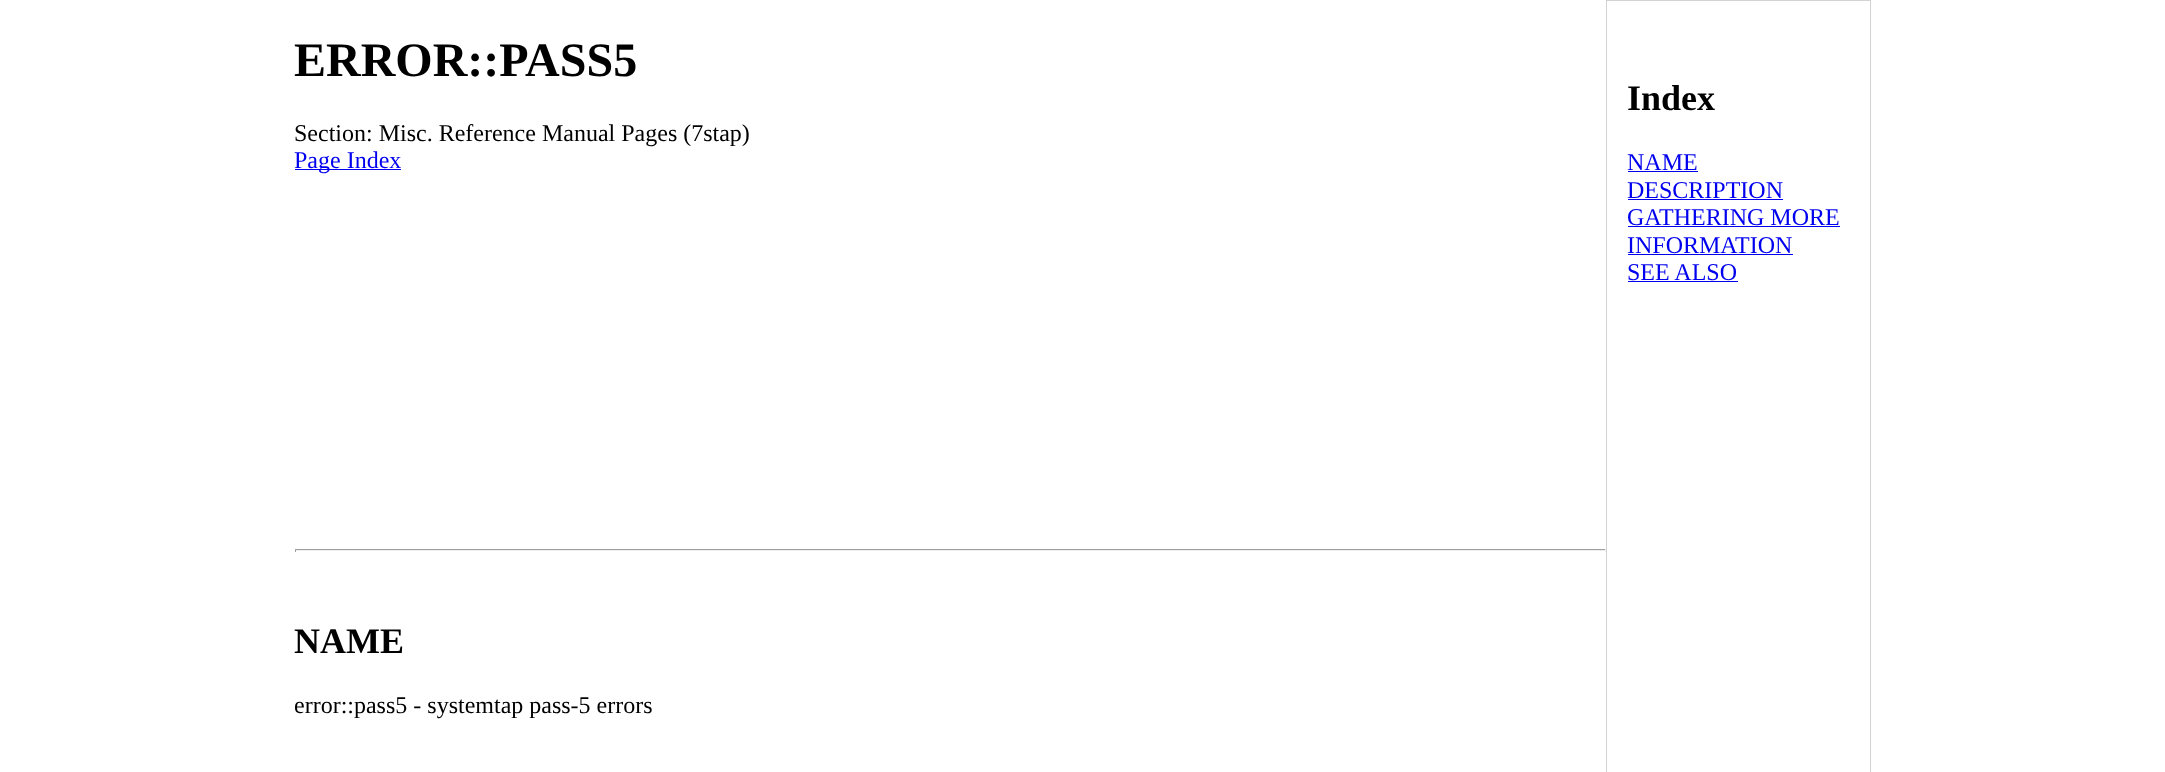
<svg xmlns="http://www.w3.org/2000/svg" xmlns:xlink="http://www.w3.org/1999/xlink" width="2165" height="772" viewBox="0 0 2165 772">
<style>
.cls-1{font:bold 48px Liberation Serif;fill:#000000}
.cls-2{font:24px Liberation Serif;fill:#000000}
.cls-3{font:24px Liberation Serif;fill:#0000ee}
.cls-4{font:bold 36px Liberation Serif;fill:#000000}
</style>
<rect width="100%" height="100%" fill="#ffffff"/>
<rect fill="#0000ee" x="295" y="169" width="106" height="1"/>
<rect fill="#9f9f9f" x="295" y="549" width="1311" height="1"/>
<rect fill="#eeeeee" x="1605" y="549" width="1" height="3"/>
<rect fill="#eeeeee" x="295" y="550" width="1311" height="1"/>
<rect fill="#9f9f9f" x="295" y="549" width="1" height="3"/>
<rect fill="none" stroke="#d3d3d3" x="1606.5" y="0.5" width="264" height="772"/>
<rect fill="#0000ee" x="1628" y="171" width="70" height="1"/>
<rect fill="#0000ee" x="1628" y="199" width="155" height="1"/>
<rect fill="#0000ee" x="1628" y="226" width="212" height="1"/>
<rect fill="#0000ee" x="1628" y="254" width="165" height="1"/>
<rect fill="#0000ee" x="1628" y="281" width="110" height="1"/>
<text class="cls-1" x="294" y="76">ERROR::PASS5</text>
<text class="cls-2" x="294" y="141">Section: Misc. Reference Manual Pages (7stap)</text>
<text class="cls-3" x="294" y="168">Page Index</text>
<text class="cls-4" x="294" y="653">NAME</text>
<text class="cls-2" x="294" y="713">error::pass5 - systemtap pass-5 errors</text>
<text class="cls-4" x="1627" y="110">Index</text>
<text class="cls-3"><tspan x="1627" y="170">NAME</tspan><tspan x="1627" y="198">DESCRIPTION</tspan><tspan x="1627" y="225">GATHERING MORE</tspan><tspan x="1627" y="253">INFORMATION</tspan><tspan x="1627" y="280">SEE ALSO</tspan></text>
</svg>
